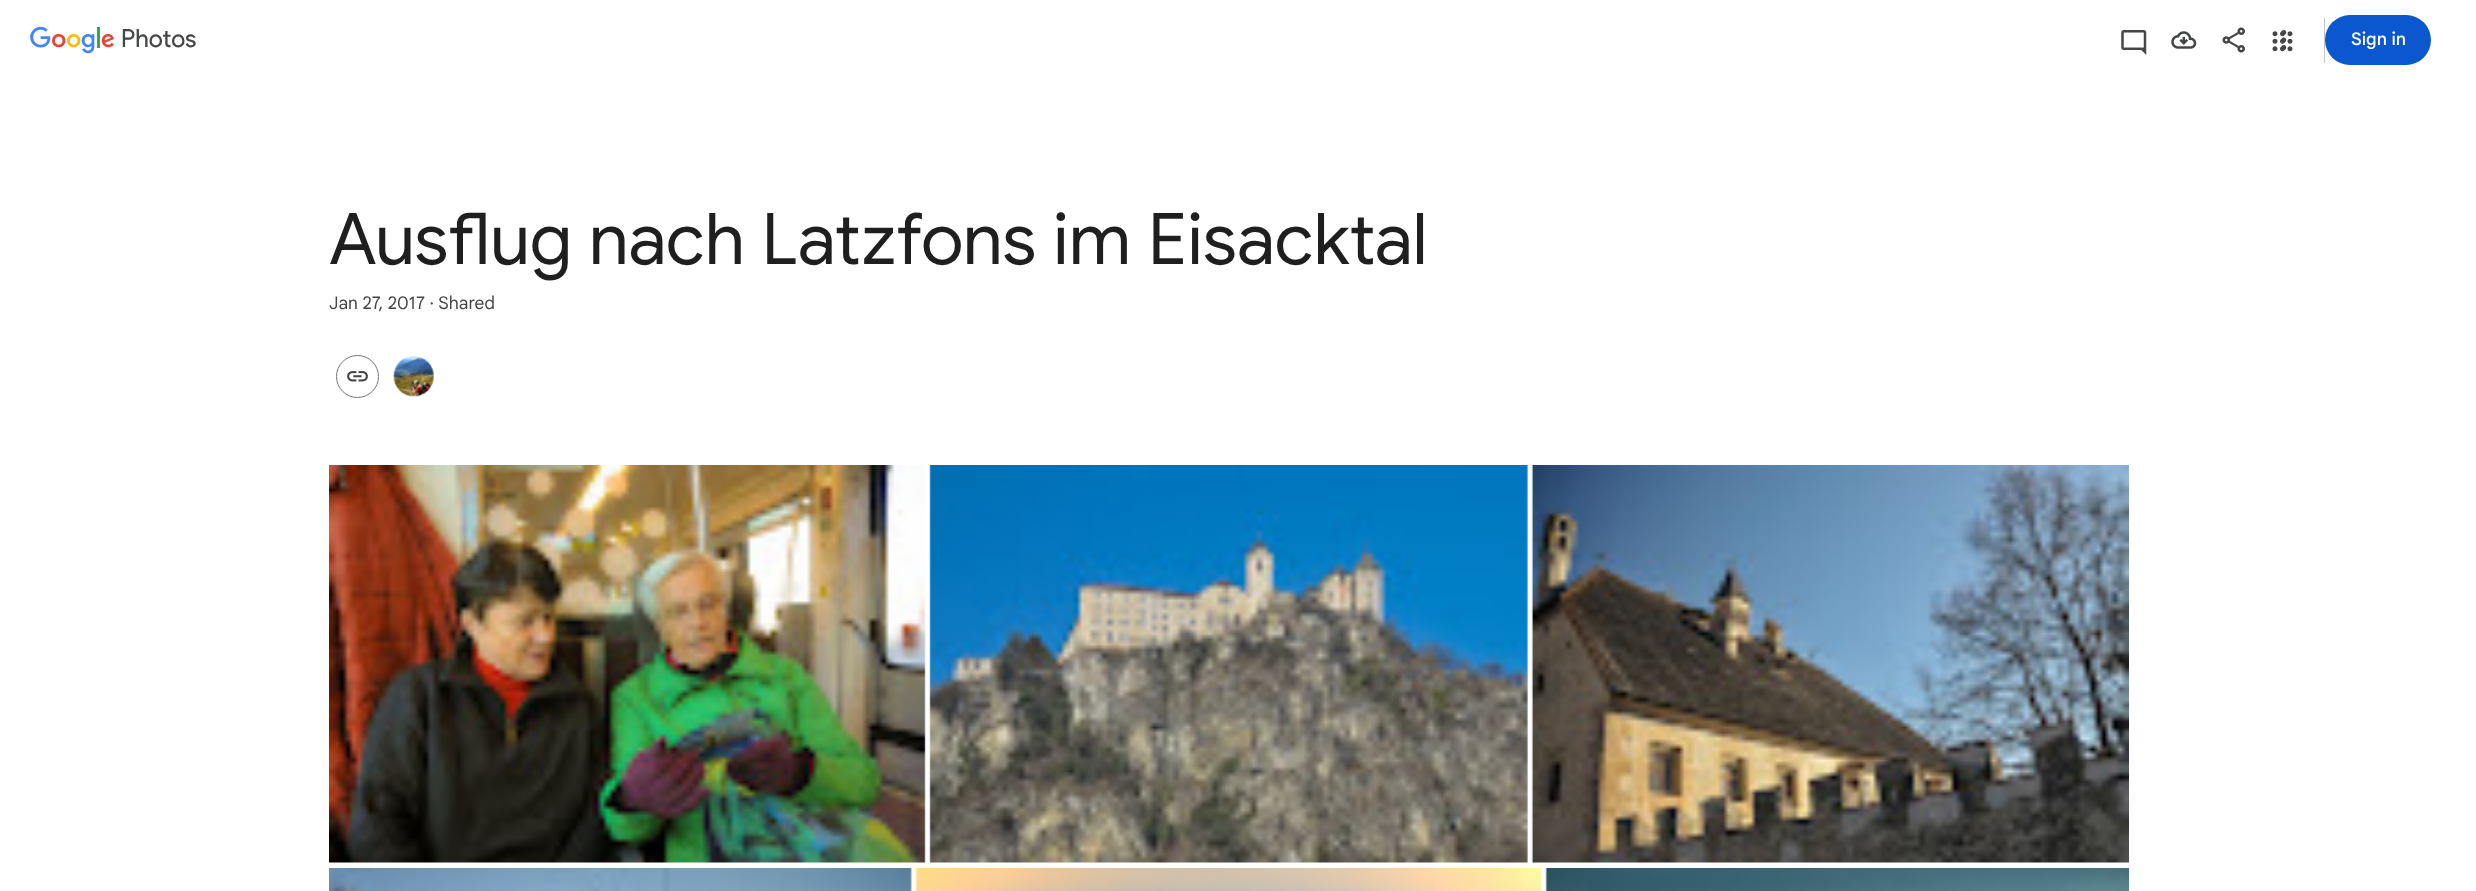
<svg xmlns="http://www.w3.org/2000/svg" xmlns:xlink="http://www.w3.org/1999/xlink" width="2476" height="891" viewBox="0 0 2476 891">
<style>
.cls-1{font:25px Product Sans;fill:#444746}
.cls-2{font:71.25px Google Sans;fill:#1f1f1f}
.cls-3{font:17.5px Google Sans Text;fill:#444746}
.cls-4{font:500 17.5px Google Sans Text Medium;fill:#ffffff}
</style>
<rect width="100%" height="100%" fill="#ffffff"/>
<image xlink:href="image0.png" x="30" y="26" width="84" height="28"/>
<image xlink:href="image1.png" x="2121" y="30" width="26" height="25"/>
<image xlink:href="image2.png" x="2171" y="31" width="26" height="18"/>
<image xlink:href="image3.png" x="2222" y="27" width="23" height="26"/>
<image xlink:href="image4.png" x="2281" y="30" width="6" height="20"/>
<rect fill="#c4c7c5" x="2324" y="18" width="1" height="45"/>
<circle fill="none" stroke="#747775" cx="357.5" cy="376.5" r="21"/>
<image xlink:href="image5.png" x="347" y="371" width="21" height="11"/>
<image xlink:href="image6.png" x="393" y="356" width="41" height="41"/>
<image xlink:href="image7.png" x="329" y="465" width="597" height="398"/>
<image xlink:href="image8.png" x="929" y="465" width="599" height="398"/>
<image xlink:href="image9.png" x="1531" y="465" width="598" height="398"/>
<image xlink:href="image10.png" x="329" y="868" width="583" height="23"/>
<image xlink:href="image11.png" x="915" y="868" width="627" height="23"/>
<image xlink:href="image12.png" x="1545" y="868" width="584" height="23"/>
<image xlink:href="image13.png" x="2272" y="31" width="21" height="21"/>
<rect fill="#0b57d0" x="2325" y="15" width="106" height="50" rx="25"/>
<text class="cls-1" x="121" y="47">Photos</text>
<text class="cls-2" x="329" y="264">Ausflug nach Latzfons im Eisacktal</text>
<text class="cls-3" x="329" y="309">Jan 27, 2017 · Shared</text>
<text class="cls-4" x="2351" y="45">Sign in</text>
</svg>
